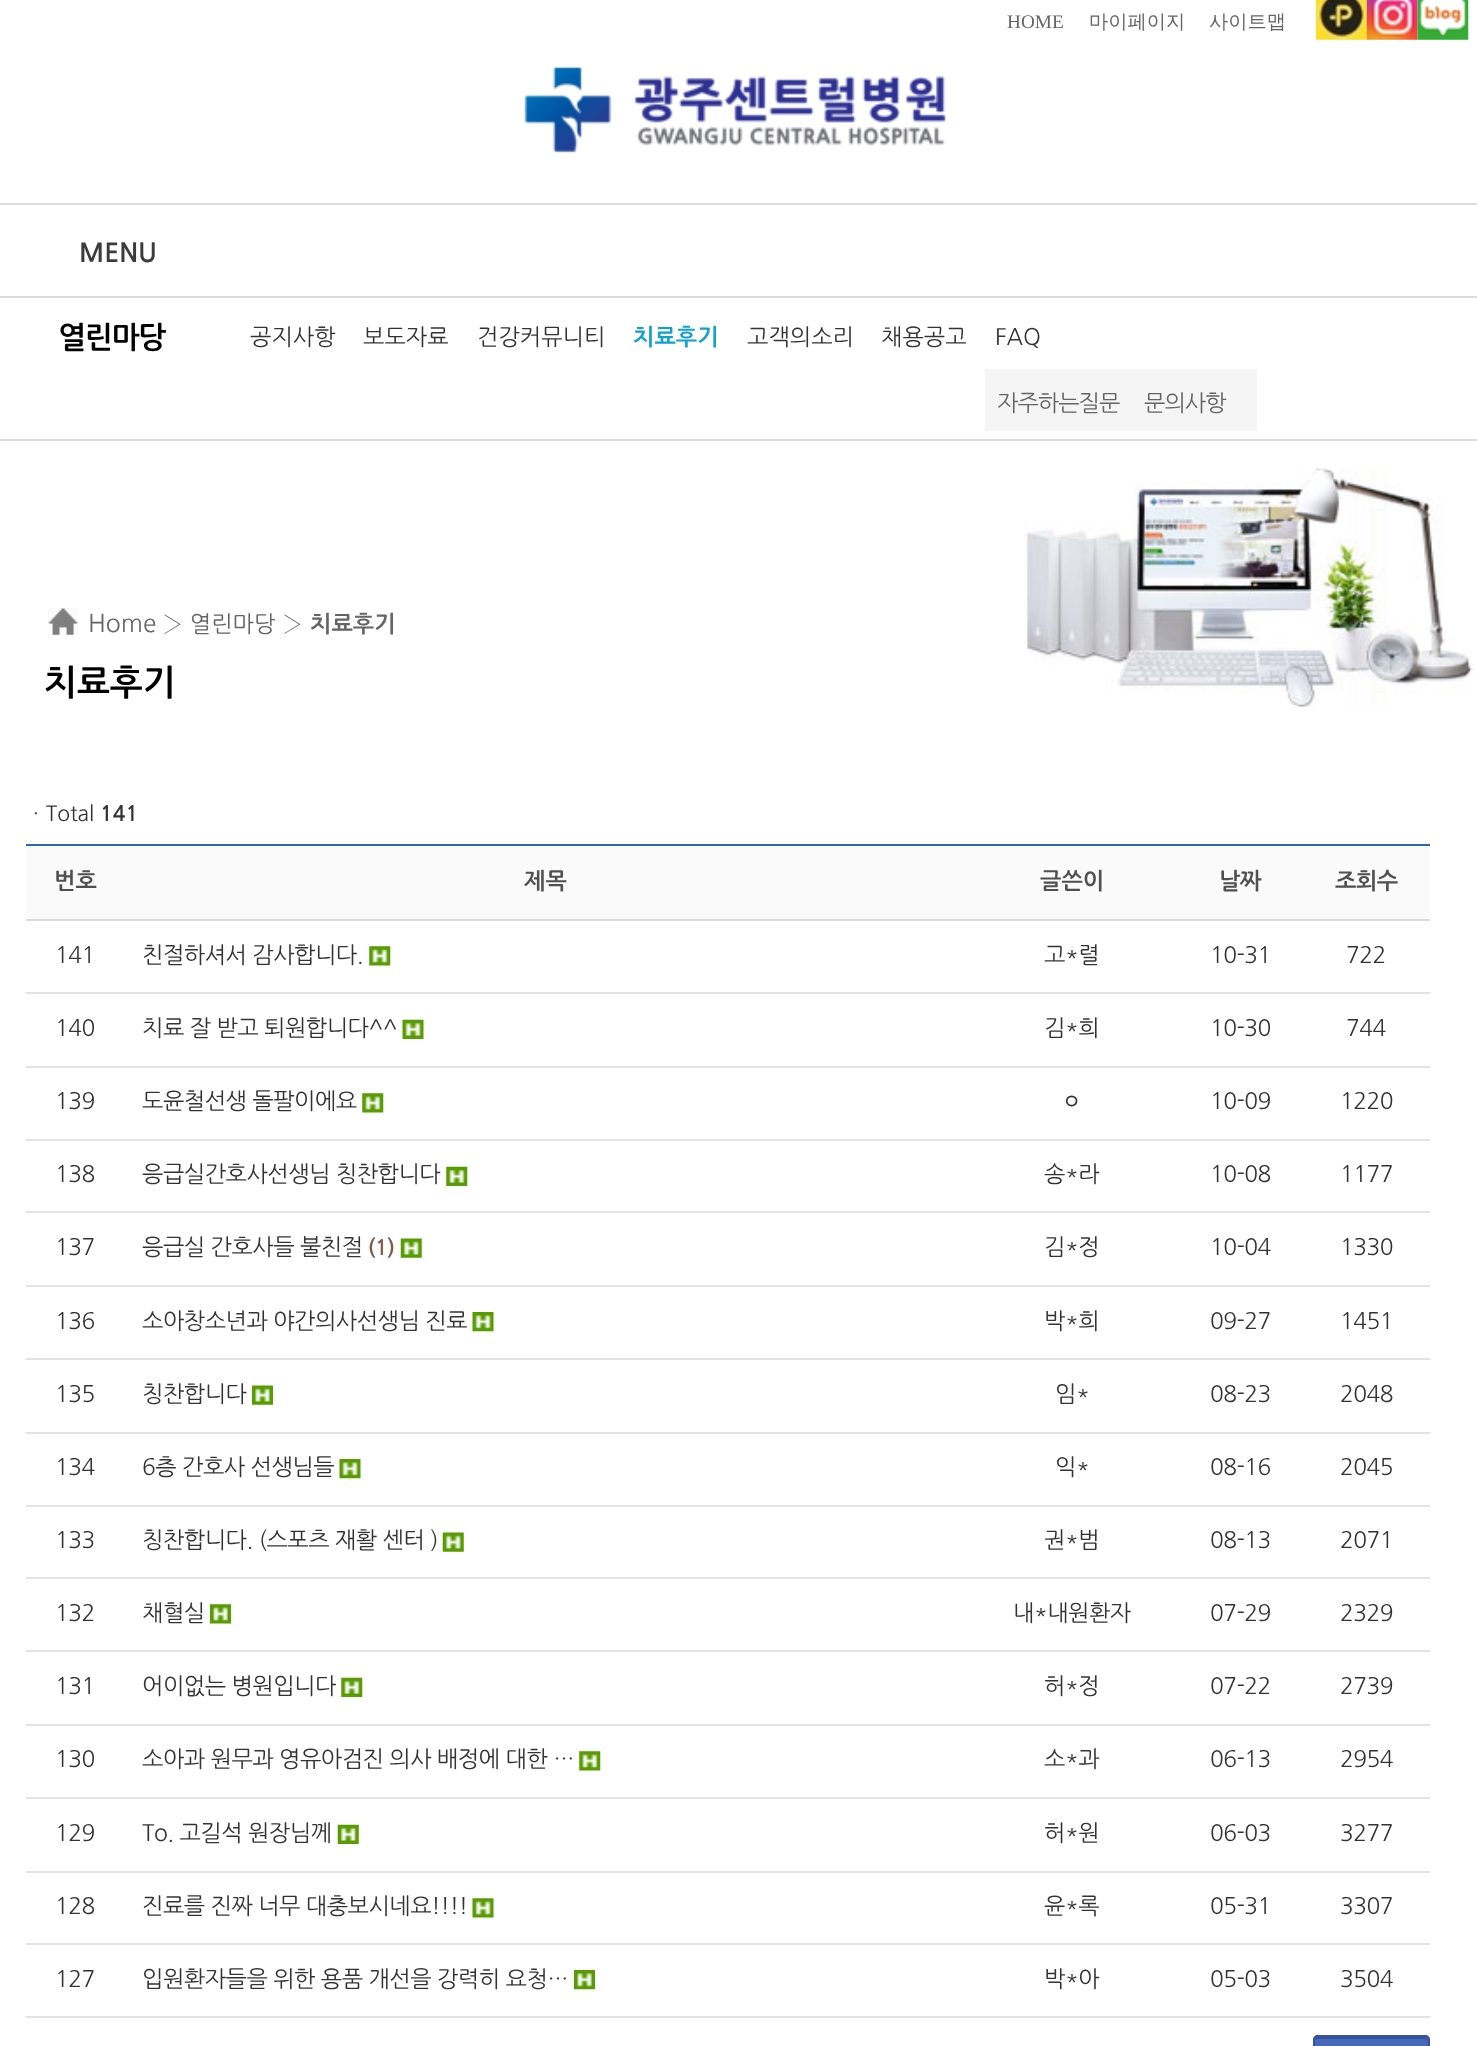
<svg xmlns="http://www.w3.org/2000/svg" xmlns:xlink="http://www.w3.org/1999/xlink" width="1477" height="2046" viewBox="0 0 1477 2046">
<style>
.cls-1{font:19.25px Liberation Serif;fill:#656565}
.cls-2{font:500 19.25px WenQuanYi Zen Hei;fill:#656565}
.cls-3{font:bold 26px NanumGothic;fill:#3c3c3c}
.cls-4{font:bold 30px NanumGothic;letter-spacing:-1.5px;fill:#000000}
.cls-5{font:22.75px NanumGothic;fill:#333333}
.cls-6{font:bold 22.75px NanumGothic;fill:#11a1ce}
.cls-7{font:22.75px NanumGothic;letter-spacing:-1px;fill:#656565}
.cls-8{font:24.5px NanumGothic;fill:#656565}
.cls-9{font:22.75px NanumGothic;fill:#656565}
.cls-10{font:bold 22.75px NanumGothic;fill:#656565}
.cls-11{font:bold 35px NanumGothic;fill:#000000}
.cls-12{font:21px NanumGothic;fill:#333333}
.cls-13{font:bold 21px NanumGothic;fill:#333333}
.cls-14{font:bold 22.75px NanumGothic;fill:#505050}
.cls-15{font:bold 22.75px NanumGothic;letter-spacing:-0.5px;fill:#505050}
.cls-16{font:22.75px NanumGothic;letter-spacing:-0.5px;fill:#333333}
.cls-17{font:bold 21px NanumGothic;letter-spacing:-0.5px;fill:#855c47}
</style>
<rect width="100%" height="100%" fill="#ffffff"/>
<image xlink:href="image0.png" x="1316" y="0" width="51" height="40"/>
<image xlink:href="image1.png" x="1366" y="0" width="52" height="40"/>
<image xlink:href="image2.png" x="1417" y="0" width="52" height="40"/>
<image xlink:href="image3.png" x="524" y="67" width="422" height="86"/>
<rect fill="#dddddd" x="0" y="203" width="1477" height="2"/>
<rect fill="#dddddd" x="0" y="296" width="1477" height="2"/>
<rect fill="#dddddd" x="0" y="439" width="1477" height="2"/>
<rect fill="#f5f5f5" x="985" y="369" width="272" height="62"/>
<image xlink:href="image4.png" x="48" y="608" width="30" height="27"/>
<image xlink:href="image5.png" x="1024" y="468" width="453" height="239"/>
<rect fill="#fafafa" x="26" y="846" width="1404" height="73"/>
<rect fill="#2a68af" x="26" y="844" width="1404" height="2"/>
<rect fill="#dadada" x="26" y="919" width="1404" height="2"/>
<rect fill="#e3e3e3" x="26" y="992" width="1404" height="2"/>
<image xlink:href="image6.png" x="369" y="946" width="22" height="20"/>
<rect fill="#e3e3e3" x="26" y="1066" width="1404" height="2"/>
<image xlink:href="image7.png" x="402" y="1019" width="22" height="20"/>
<rect fill="#e3e3e3" x="26" y="1139" width="1404" height="2"/>
<image xlink:href="image8.png" x="362" y="1093" width="22" height="20"/>
<rect fill="#e3e3e3" x="26" y="1211" width="1404" height="2"/>
<image xlink:href="image9.png" x="446" y="1166" width="22" height="20"/>
<rect fill="#e3e3e3" x="26" y="1285" width="1404" height="2"/>
<image xlink:href="image10.png" x="400" y="1238" width="22" height="20"/>
<rect fill="#e3e3e3" x="26" y="1358" width="1404" height="2"/>
<image xlink:href="image11.png" x="472" y="1312" width="22" height="20"/>
<rect fill="#e3e3e3" x="26" y="1432" width="1404" height="2"/>
<image xlink:href="image12.png" x="252" y="1385" width="21" height="20"/>
<rect fill="#e3e3e3" x="26" y="1505" width="1404" height="2"/>
<image xlink:href="image13.png" x="339" y="1459" width="22" height="20"/>
<rect fill="#e3e3e3" x="26" y="1577" width="1404" height="2"/>
<image xlink:href="image10.png" x="442" y="1532" width="22" height="20"/>
<rect fill="#e3e3e3" x="26" y="1650" width="1404" height="2"/>
<image xlink:href="image14.png" x="210" y="1604" width="21" height="20"/>
<rect fill="#e3e3e3" x="26" y="1724" width="1404" height="2"/>
<image xlink:href="image9.png" x="341" y="1677" width="22" height="20"/>
<rect fill="#e3e3e3" x="26" y="1797" width="1404" height="2"/>
<image xlink:href="image6.png" x="579" y="1751" width="22" height="20"/>
<rect fill="#e3e3e3" x="26" y="1871" width="1404" height="2"/>
<image xlink:href="image15.png" x="337" y="1824" width="22" height="20"/>
<rect fill="#e3e3e3" x="26" y="1943" width="1404" height="2"/>
<image xlink:href="image16.png" x="472" y="1898" width="22" height="20"/>
<rect fill="#e3e3e3" x="26" y="2016" width="1404" height="2"/>
<image xlink:href="image17.png" x="574" y="1970" width="21" height="20"/>
<rect fill="#4868b8" x="1313" y="2035" width="117" height="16" rx="5"/>
<path fill="#34529f" d="M1318 2039H1424C1426 2039 1428 2040 1428 2042C1428 2032 1410 2037 1406 2037H1336C1332 2037 1314 2032 1314 2042C1314 2040 1316 2039 1318 2039Z"/>
<rect fill="none" stroke="#34529f" stroke-width="2" x="1314" y="2036" width="115" height="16" rx="4"/>
<text class="cls-1" x="1007" y="28">HOME</text>
<text class="cls-2" x="1089" y="28">마이페이지</text>
<text class="cls-2" x="1209" y="28">사이트맵</text>
<text class="cls-3" x="79" y="262">MENU</text>
<text class="cls-4" x="58" y="348">열린마당</text>
<text class="cls-5" x="250" y="345">공지사항</text>
<text class="cls-5" x="363" y="345">보도자료</text>
<text class="cls-5" x="477" y="345">건강커뮤니티</text>
<text class="cls-6" x="633" y="345">치료후기</text>
<text class="cls-5" x="747" y="345">고객의소리</text>
<text class="cls-5" x="881" y="345">채용공고</text>
<text class="cls-5" x="995" y="345">FAQ</text>
<text class="cls-7" x="997" y="411">자주하는질문</text>
<text class="cls-7" x="1144" y="411">문의사항</text>
<text class="cls-8" x="88" y="632">Home</text>
<text class="cls-9" x="162" y="632">› 열린마당 ›</text>
<text class="cls-10" x="310" y="632">치료후기</text>
<text class="cls-11" x="44" y="695">치료후기</text>
<text class="cls-12" x="26" y="821">ㆍTotal</text>
<text class="cls-13" x="100" y="821">141</text>
<text class="cls-14" x="54" y="889">번호</text>
<text class="cls-14" x="524" y="889">제목</text>
<text class="cls-14" x="1040" y="889">글쓴이</text>
<text class="cls-15" x="1219" y="889">날짜</text>
<text class="cls-15" x="1335" y="889">조회수</text>
<text class="cls-16" x="55" y="963">141</text>
<text class="cls-16" x="142" y="963">친절하셔서 감사합니다.</text>
<text class="cls-16" x="1044" y="963">고*렬</text>
<text class="cls-16" x="1210" y="963">10-31</text>
<text class="cls-16" x="1346" y="963">722</text>
<text class="cls-16" x="55" y="1036">140</text>
<text class="cls-16" x="142" y="1036">치료 잘 받고 퇴원합니다^^</text>
<text class="cls-16" x="1044" y="1036">김*희</text>
<text class="cls-16" x="1210" y="1036">10-30</text>
<text class="cls-16" x="1346" y="1036">744</text>
<text class="cls-16" x="55" y="1109">139</text>
<text class="cls-16" x="142" y="1109">도윤철선생 돌팔이에요</text>
<text class="cls-16" x="1061" y="1109">ㅇ</text>
<text class="cls-16" x="1210" y="1109">10-09</text>
<text class="cls-16" x="1340" y="1109">1220</text>
<text class="cls-16" x="55" y="1182">138</text>
<text class="cls-16" x="142" y="1182">응급실간호사선생님 칭찬합니다</text>
<text class="cls-16" x="1044" y="1182">송*라</text>
<text class="cls-16" x="1210" y="1182">10-08</text>
<text class="cls-16" x="1340" y="1182">1177</text>
<text class="cls-16" x="55" y="1255">137</text>
<text class="cls-16" x="142" y="1255">응급실 간호사들 불친절</text>
<text class="cls-17" x="368" y="1255">(1)</text>
<text class="cls-16" x="1044" y="1255">김*정</text>
<text class="cls-16" x="1210" y="1255">10-04</text>
<text class="cls-16" x="1340" y="1255">1330</text>
<text class="cls-16" x="55" y="1329">136</text>
<text class="cls-16" x="142" y="1329">소아창소년과 야간의사선생님 진료</text>
<text class="cls-16" x="1044" y="1329">박*희</text>
<text class="cls-16" x="1210" y="1329">09-27</text>
<text class="cls-16" x="1340" y="1329">1451</text>
<text class="cls-16" x="55" y="1402">135</text>
<text class="cls-16" x="142" y="1402">칭찬합니다</text>
<text class="cls-16" x="1055" y="1402">임*</text>
<text class="cls-16" x="1210" y="1402">08-23</text>
<text class="cls-16" x="1340" y="1402">2048</text>
<text class="cls-16" x="55" y="1475">134</text>
<text class="cls-16" x="142" y="1475">6층 간호사 선생님들</text>
<text class="cls-16" x="1055" y="1475">익*</text>
<text class="cls-16" x="1210" y="1475">08-16</text>
<text class="cls-16" x="1340" y="1475">2045</text>
<text class="cls-16" x="55" y="1548">133</text>
<text class="cls-16" x="142" y="1548">칭찬합니다. (스포츠 재활 센터 )</text>
<text class="cls-16" x="1044" y="1548">권*범</text>
<text class="cls-16" x="1210" y="1548">08-13</text>
<text class="cls-16" x="1340" y="1548">2071</text>
<text class="cls-16" x="55" y="1621">132</text>
<text class="cls-16" x="142" y="1621">채혈실</text>
<text class="cls-16" x="1013" y="1621">내*내원환자</text>
<text class="cls-16" x="1210" y="1621">07-29</text>
<text class="cls-16" x="1340" y="1621">2329</text>
<text class="cls-16" x="55" y="1694">131</text>
<text class="cls-16" x="142" y="1694">어이없는 병원입니다</text>
<text class="cls-16" x="1044" y="1694">허*정</text>
<text class="cls-16" x="1210" y="1694">07-22</text>
<text class="cls-16" x="1340" y="1694">2739</text>
<text class="cls-16" x="55" y="1767">130</text>
<text class="cls-16" x="142" y="1767">소아과 원무과 영유아검진 의사 배정에 대한 …</text>
<text class="cls-16" x="1044" y="1767">소*과</text>
<text class="cls-16" x="1210" y="1767">06-13</text>
<text class="cls-16" x="1340" y="1767">2954</text>
<text class="cls-16" x="55" y="1841">129</text>
<text class="cls-16" x="142" y="1841">To. 고길석 원장님께</text>
<text class="cls-16" x="1044" y="1841">허*원</text>
<text class="cls-16" x="1210" y="1841">06-03</text>
<text class="cls-16" x="1340" y="1841">3277</text>
<text class="cls-16" x="55" y="1914">128</text>
<text class="cls-16" x="142" y="1914">진료를 진짜 너무 대충보시네요!!!!</text>
<text class="cls-16" x="1044" y="1914">윤*록</text>
<text class="cls-16" x="1210" y="1914">05-31</text>
<text class="cls-16" x="1340" y="1914">3307</text>
<text class="cls-16" x="55" y="1987">127</text>
<text class="cls-16" x="142" y="1987">입원환자들을 위한 용품 개선을 강력히 요청…</text>
<text class="cls-16" x="1044" y="1987">박*아</text>
<text class="cls-16" x="1210" y="1987">05-03</text>
<text class="cls-16" x="1340" y="1987">3504</text>
</svg>
